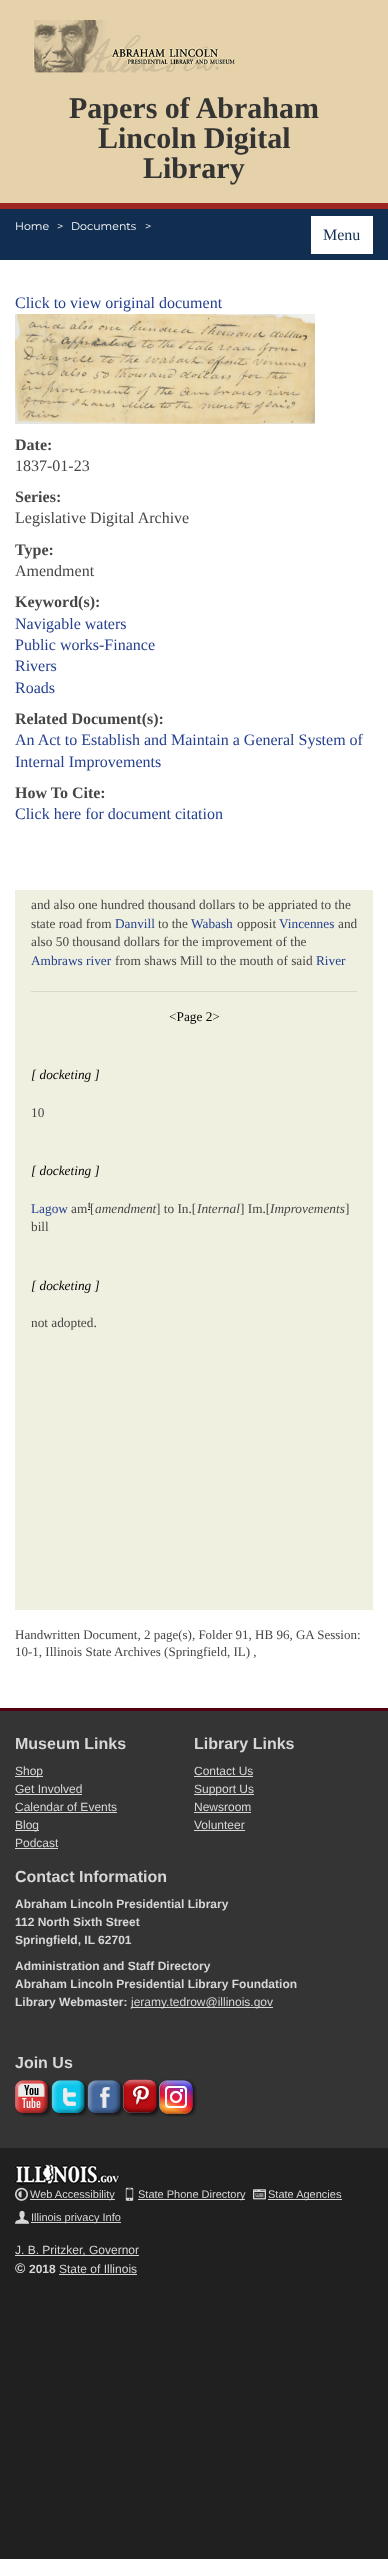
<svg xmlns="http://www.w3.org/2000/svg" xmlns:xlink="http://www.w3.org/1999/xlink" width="388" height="2559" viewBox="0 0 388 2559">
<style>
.cls-1{font:bold 30px Liberation Serif;fill:#343434}
.cls-2{font:11px Montserrat;fill:#ffffff}
.cls-3{font:16px Liberation Serif;fill:#112e51}
.cls-4{font:16px Liberation Serif;fill:#25408f}
.cls-5{font:bold 16px Liberation Serif;fill:#464646}
.cls-6{font:16px Liberation Serif;fill:#464646}
.cls-7{font:13.3px Liberation Serif;fill:#464646}
.cls-8{font:13.3px Liberation Serif;fill:#25408f}
.cls-9{font:13.3px Liberation Serif;fill:#000000}
.cls-10{font:italic 13.3px Liberation Serif;fill:#000000}
.cls-11{font:10px Liberation Serif;fill:#000000}
.cls-12{font:italic 13.3px Liberation Serif;fill:#464646}
.cls-13{font:13px Liberation Serif;fill:#464646}
.cls-14{font:bold 16px Liberation Sans;fill:#d6d7d9}
.cls-15{font:12px Liberation Sans;fill:#d6d7d9}
.cls-16{font:bold 12px Liberation Sans;fill:#d6d7d9}
.cls-17{font:11px Liberation Sans;fill:#d6d7d9}
.cls-18{font:bold 14px Liberation Sans;fill:#d6d7d9}
</style>
<rect width="100%" height="100%" fill="#202020"/>
<rect fill="#ffffff" x="0" y="260" width="388" height="1448"/>
<rect fill="#e5d2aa" x="0" y="0" width="388" height="203"/>
<rect fill="#9d2720" x="0" y="203" width="388" height="6"/>
<image xlink:href="image0.png" x="33" y="20" width="202" height="53"/>
<rect fill="#112e51" x="0" y="209" width="388" height="51"/>
<rect fill="#ffffff" x="311" y="216" width="62" height="38"/>
<image xlink:href="image1.png" x="15" y="314" width="300" height="110"/>
<rect fill="#f0f0e1" x="15" y="890" width="358" height="720"/>
<rect fill="#d8d8cb" x="31" y="991" width="326" height="1"/>
<rect fill="#000000" x="88" y="1209" width="2" height="1"/>
<rect fill="#343434" x="0" y="1711" width="388" height="437"/>
<rect fill="#51000f" x="0" y="1708" width="388" height="3"/>
<rect fill="#d6d7d9" x="15" y="1776" width="28" height="1"/>
<rect fill="#d6d7d9" x="15" y="1794" width="67" height="1"/>
<rect fill="#d6d7d9" x="15" y="1812" width="102" height="1"/>
<rect fill="#d6d7d9" x="15" y="1830" width="24" height="1"/>
<rect fill="#d6d7d9" x="15" y="1848" width="43" height="1"/>
<rect fill="#d6d7d9" x="194" y="1776" width="59" height="1"/>
<rect fill="#d6d7d9" x="194" y="1794" width="60" height="1"/>
<rect fill="#d6d7d9" x="194" y="1812" width="57" height="1"/>
<rect fill="#d6d7d9" x="194" y="1830" width="51" height="1"/>
<rect fill="#d6d7d9" x="131" y="2007" width="142" height="1"/>
<image xlink:href="image2.png" x="15" y="2080" width="38" height="37"/>
<image xlink:href="image3.png" x="51" y="2080" width="38" height="37"/>
<image xlink:href="image4.png" x="87" y="2080" width="38" height="37"/>
<image xlink:href="image5.png" x="123" y="2079" width="38" height="38"/>
<image xlink:href="image6.png" x="159" y="2079" width="38" height="38"/>
<image xlink:href="image7.png" x="15" y="2164" width="105" height="21"/>
<image xlink:href="image8.png" x="15" y="2187" width="13" height="14"/>
<rect fill="#d6d7d9" x="30" y="2199" width="85" height="1"/>
<image xlink:href="image9.png" x="125" y="2187" width="9" height="14"/>
<rect fill="#d6d7d9" x="138" y="2199" width="107" height="1"/>
<image xlink:href="image10.png" x="253" y="2189" width="13" height="11"/>
<rect fill="#d6d7d9" x="268" y="2199" width="74" height="1"/>
<image xlink:href="image11.png" x="15" y="2210" width="14" height="14"/>
<rect fill="#d6d7d9" x="31" y="2222" width="90" height="1"/>
<rect fill="#d6d7d9" x="15" y="2255" width="124" height="1"/>
<rect fill="#d6d7d9" x="59" y="2274" width="78" height="1"/>
<text class="cls-1" x="69" y="118">Papers of Abraham</text>
<text class="cls-1" x="98" y="148">Lincoln Digital</text>
<text class="cls-1" x="143" y="178">Library</text>
<text class="cls-2" x="15" y="230">Home</text>
<text class="cls-2" x="57" y="230">&gt;</text>
<text class="cls-2" x="71" y="230">Documents</text>
<text class="cls-2" x="145" y="230">&gt;</text>
<text class="cls-3" x="323" y="240">Menu</text>
<text class="cls-4" x="15" y="308">Click to view original document</text>
<text class="cls-5" x="15" y="450">Date:</text>
<text class="cls-6" x="15" y="471">1837-01-23</text>
<text class="cls-5" x="15" y="502">Series:</text>
<text class="cls-6" x="15" y="523">Legislative Digital Archive</text>
<text class="cls-5" x="15" y="555">Type:</text>
<text class="cls-6" x="15" y="576">Amendment</text>
<text class="cls-5" x="15" y="607">Keyword(s):</text>
<text class="cls-4"><tspan x="15" y="629">Navigable waters</tspan><tspan x="15" y="650">Public works-Finance</tspan><tspan x="15" y="671">Rivers</tspan><tspan x="15" y="693">Roads</tspan></text>
<text class="cls-5" x="15" y="724">Related Document(s):</text>
<text class="cls-4"><tspan x="15" y="745">An Act to Establish and Maintain a General System of</tspan><tspan x="15" y="767">Internal Improvements</tspan></text>
<text class="cls-5" x="15" y="798">How To Cite:</text>
<text class="cls-4" x="15" y="819">Click here for document citation</text>
<text class="cls-7"><tspan x="31" y="909">and also one hundred thousand dollars to be appriated to the</tspan><tspan x="31" y="928">state road from</tspan></text>
<text class="cls-8" x="115" y="928">Danvill</text>
<text class="cls-7" x="158" y="928">to the</text>
<text class="cls-8" x="191" y="928">Wabash</text>
<text class="cls-7" x="237" y="928">opposit</text>
<text class="cls-8" x="279" y="928">Vincennes</text>
<text class="cls-7" x="338" y="928">and</text>
<text class="cls-7" x="31" y="946">also 50 thousand dollars for the improvement of the</text>
<text class="cls-8" x="31" y="965">Ambraws river</text>
<text class="cls-7" x="115" y="965">from shaws Mill to the mouth of said</text>
<text class="cls-8" x="316" y="965">River</text>
<text class="cls-9" x="169" y="1021">&lt;Page 2&gt;</text>
<text class="cls-10" x="31" y="1079">[ docketing ]</text>
<text class="cls-7" x="31" y="1117">10</text>
<text class="cls-10" x="31" y="1175">[ docketing ]</text>
<text class="cls-8" x="31" y="1213">Lagow</text>
<text class="cls-7" x="71" y="1213">am</text>
<text class="cls-11" x="88" y="1208">t</text>
<text class="cls-7" x="90" y="1213">[</text>
<text class="cls-12" x="95" y="1213">amendment</text>
<text class="cls-7" x="156" y="1213">] to In.[</text>
<text class="cls-12" x="197" y="1213">Internal</text>
<text class="cls-7" x="240" y="1213">] Im.[</text>
<text class="cls-12" x="270" y="1213">Improvements</text>
<text class="cls-7" x="345" y="1213">]</text>
<text class="cls-7" x="31" y="1231">bill</text>
<text class="cls-10" x="31" y="1290">[ docketing ]</text>
<text class="cls-7" x="31" y="1327">not adopted.</text>
<text class="cls-13"><tspan x="15" y="1639">Handwritten Document, 2 page(s), Folder 91, HB 96, GA Session:</tspan><tspan x="15" y="1656">10-1, Illinois State Archives (Springfield, IL) ,</tspan></text>
<text class="cls-14" x="15" y="1749">Museum Links</text>
<text class="cls-15"><tspan x="15" y="1775">Shop</tspan><tspan x="15" y="1793">Get Involved</tspan><tspan x="15" y="1811">Calendar of Events</tspan><tspan x="15" y="1829">Blog</tspan><tspan x="15" y="1847">Podcast</tspan></text>
<text class="cls-14" x="194" y="1749">Library Links</text>
<text class="cls-15"><tspan x="194" y="1775">Contact Us</tspan><tspan x="194" y="1793">Support Us</tspan><tspan x="194" y="1811">Newsroom</tspan><tspan x="194" y="1829">Volunteer</tspan></text>
<text class="cls-14" x="15" y="1882">Contact Information</text>
<text class="cls-16"><tspan x="15" y="1908">Abraham Lincoln Presidential Library</tspan><tspan x="15" y="1926">112 North Sixth Street</tspan><tspan x="15" y="1944">Springfield, IL 62701</tspan></text>
<text class="cls-16"><tspan x="15" y="1970">Administration and Staff Directory</tspan><tspan x="15" y="1988">Abraham Lincoln Presidential Library Foundation</tspan><tspan x="15" y="2006">Library Webmaster:</tspan></text>
<text class="cls-15" x="131" y="2006">jeramy.tedrow@illinois.gov</text>
<text class="cls-14" x="15" y="2068">Join Us</text>
<text class="cls-17" x="30" y="2198">Web Accessibility</text>
<text class="cls-17" x="138" y="2198">State Phone Directory</text>
<text class="cls-17" x="268" y="2198">State Agencies</text>
<text class="cls-17" x="31" y="2221">Illinois privacy Info</text>
<text class="cls-15" x="15" y="2254">J. B. Pritzker, Governor</text>
<text class="cls-18" x="15" y="2273">©</text>
<text class="cls-16" x="29" y="2273">2018</text>
<text class="cls-15" x="59" y="2273">State of Illinois</text>
</svg>
